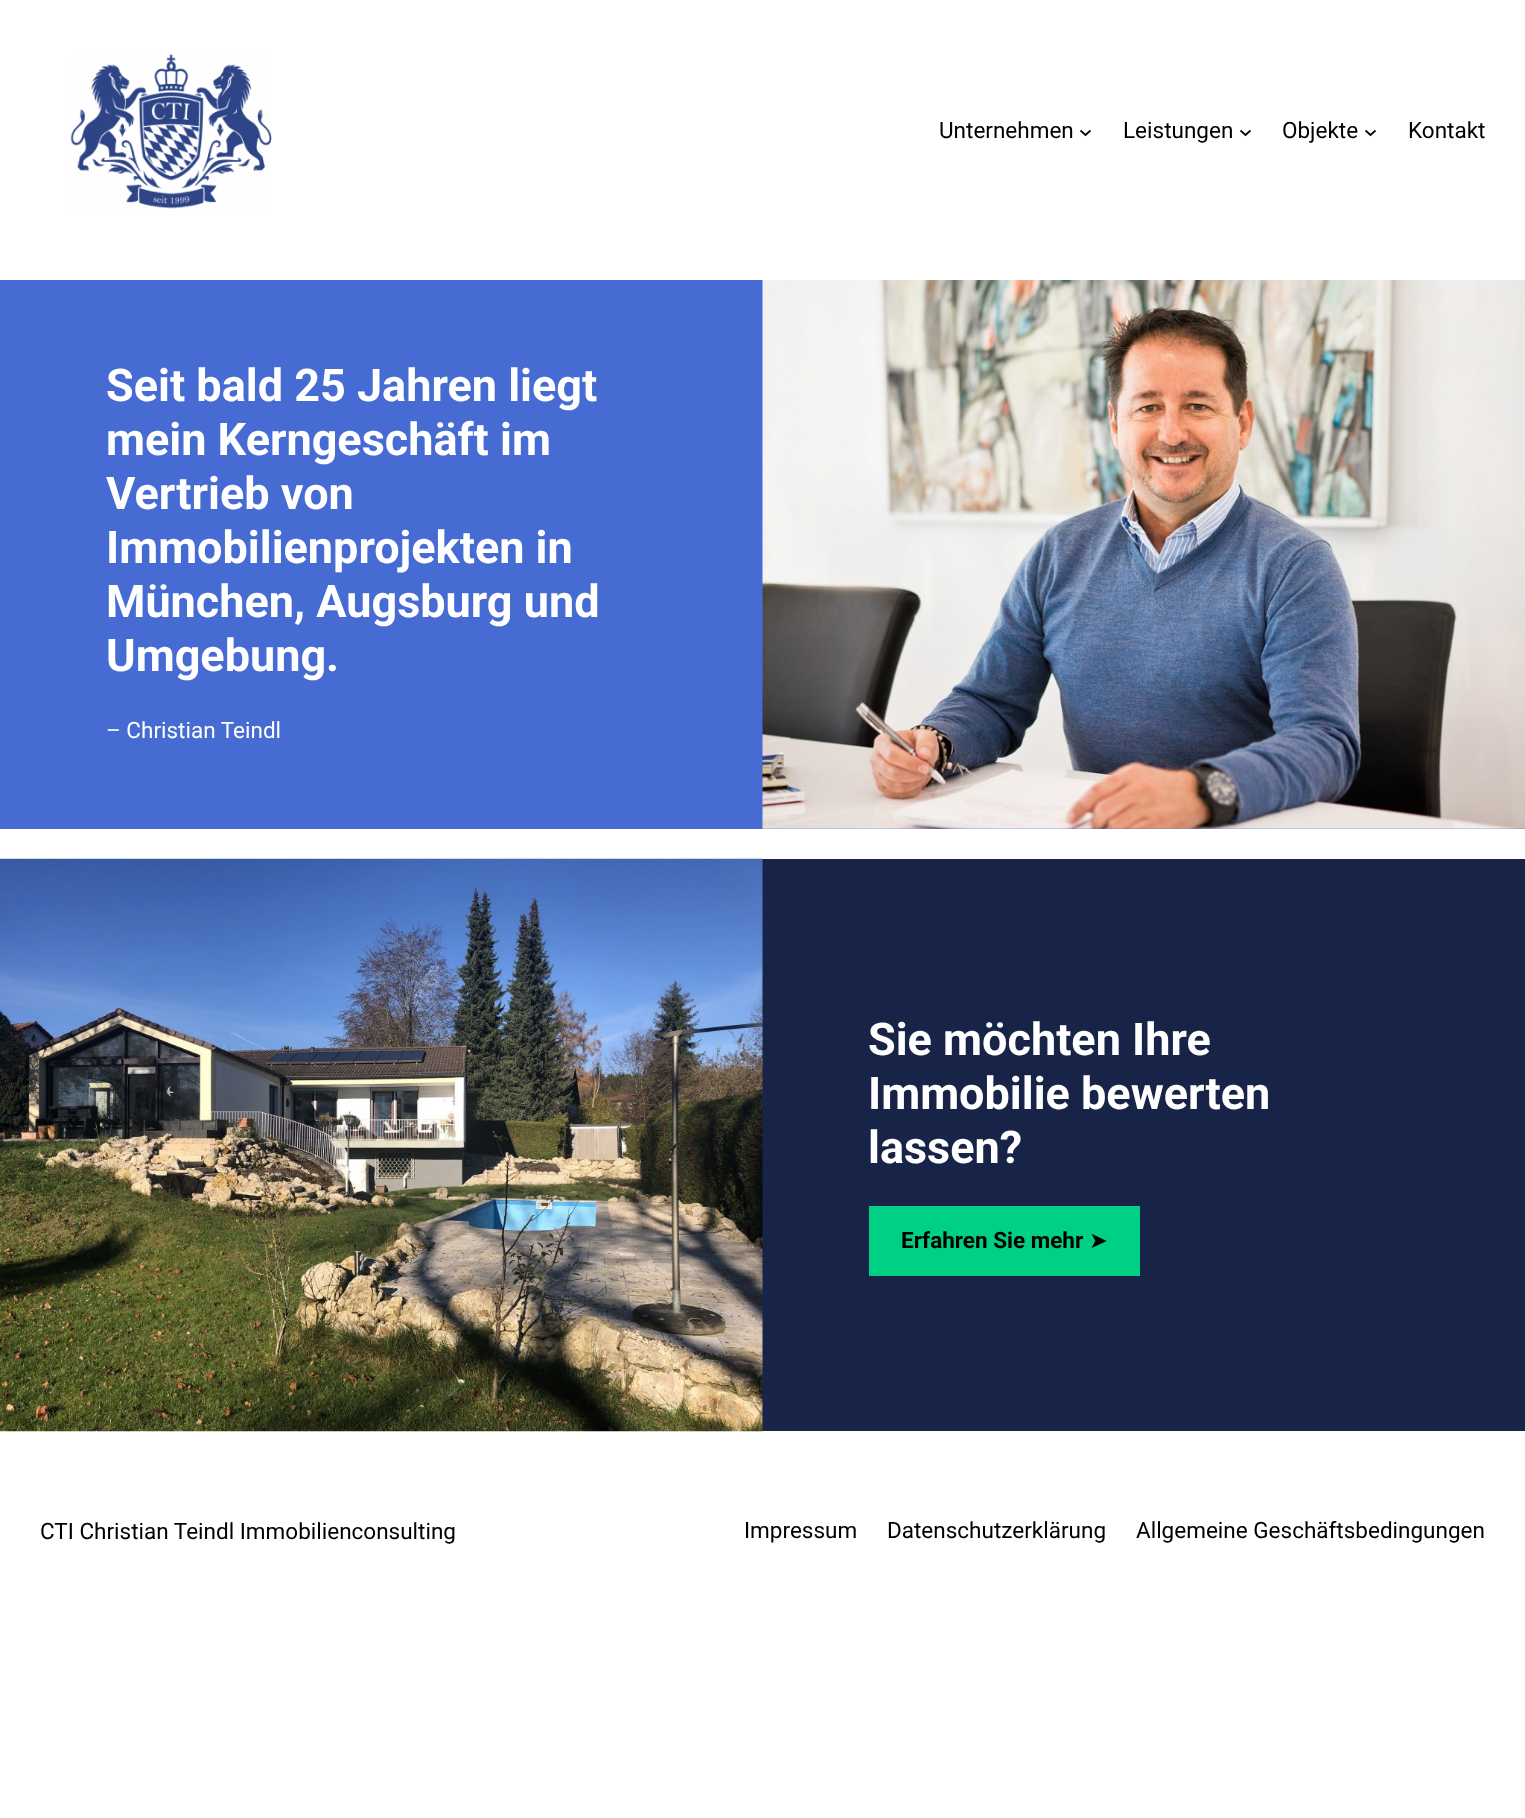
<svg xmlns="http://www.w3.org/2000/svg" xmlns:xlink="http://www.w3.org/1999/xlink" width="1525" height="1818" viewBox="0 0 1525 1818">
<style>
.cls-1{font:22.5px Roboto;fill:#000000}
.cls-2{font:bold 45px Roboto;fill:#ffffff}
.cls-3{font:22.5px Roboto;fill:#ffffff}
.cls-4{font:bold 22.5px Roboto;fill:#000000}
.cls-5{font:22.5px DejaVu Sans;fill:#000000}
</style>
<rect width="100%" height="100%" fill="#ffffff"/>
<image xlink:href="image0.png" x="70" y="54" width="202" height="155"/>
<path fill="none" stroke="#000000" stroke-width="1.7" d="M1080.5 130.5L1085.5 135L1090.5 130.5"/>
<path fill="none" stroke="#000000" stroke-width="1.7" d="M1240.5 130.5L1245.5 135L1250.5 130.5"/>
<path fill="none" stroke="#000000" stroke-width="1.7" d="M1365.5 130.5L1370.5 135L1375.5 130.5"/>
<rect fill="#466cd4" x="0" y="280" width="1525" height="549"/>
<image xlink:href="image1.png" x="762" y="280" width="763" height="549"/>
<rect fill="#182447" x="762" y="859" width="763" height="572"/>
<image xlink:href="image2.png" x="0" y="858" width="763" height="574"/>
<rect fill="#00d084" x="869" y="1206" width="271" height="70"/>
<text class="cls-1" x="939" y="138">Unternehmen</text>
<text class="cls-1" x="1123" y="138">Leistungen</text>
<text class="cls-1" x="1282" y="138">Objekte</text>
<text class="cls-1" x="1408" y="138">Kontakt</text>
<text class="cls-2"><tspan x="106" y="401">Seit bald 25 Jahren liegt</tspan><tspan x="106" y="455">mein Kerngeschäft im</tspan><tspan x="106" y="509">Vertrieb von</tspan><tspan x="106" y="563">Immobilienprojekten in</tspan><tspan x="106" y="617">München, Augsburg und</tspan><tspan x="106" y="671">Umgebung.</tspan></text>
<text class="cls-3" x="106" y="738">– Christian Teindl</text>
<text class="cls-2"><tspan x="868" y="1055">Sie möchten Ihre</tspan><tspan x="868" y="1109">Immobilie bewerten</tspan><tspan x="868" y="1163">lassen?</tspan></text>
<text class="cls-4" x="901" y="1248">Erfahren Sie mehr</text>
<text class="cls-5" x="1089" y="1248">➤</text>
<text class="cls-1" x="40" y="1539">CTI Christian Teindl Immobilienconsulting</text>
<text class="cls-1" x="744" y="1538">Impressum</text>
<text class="cls-1" x="887" y="1538">Datenschutzerklärung</text>
<text class="cls-1" x="1136" y="1538">Allgemeine Geschäftsbedingungen</text>
</svg>
